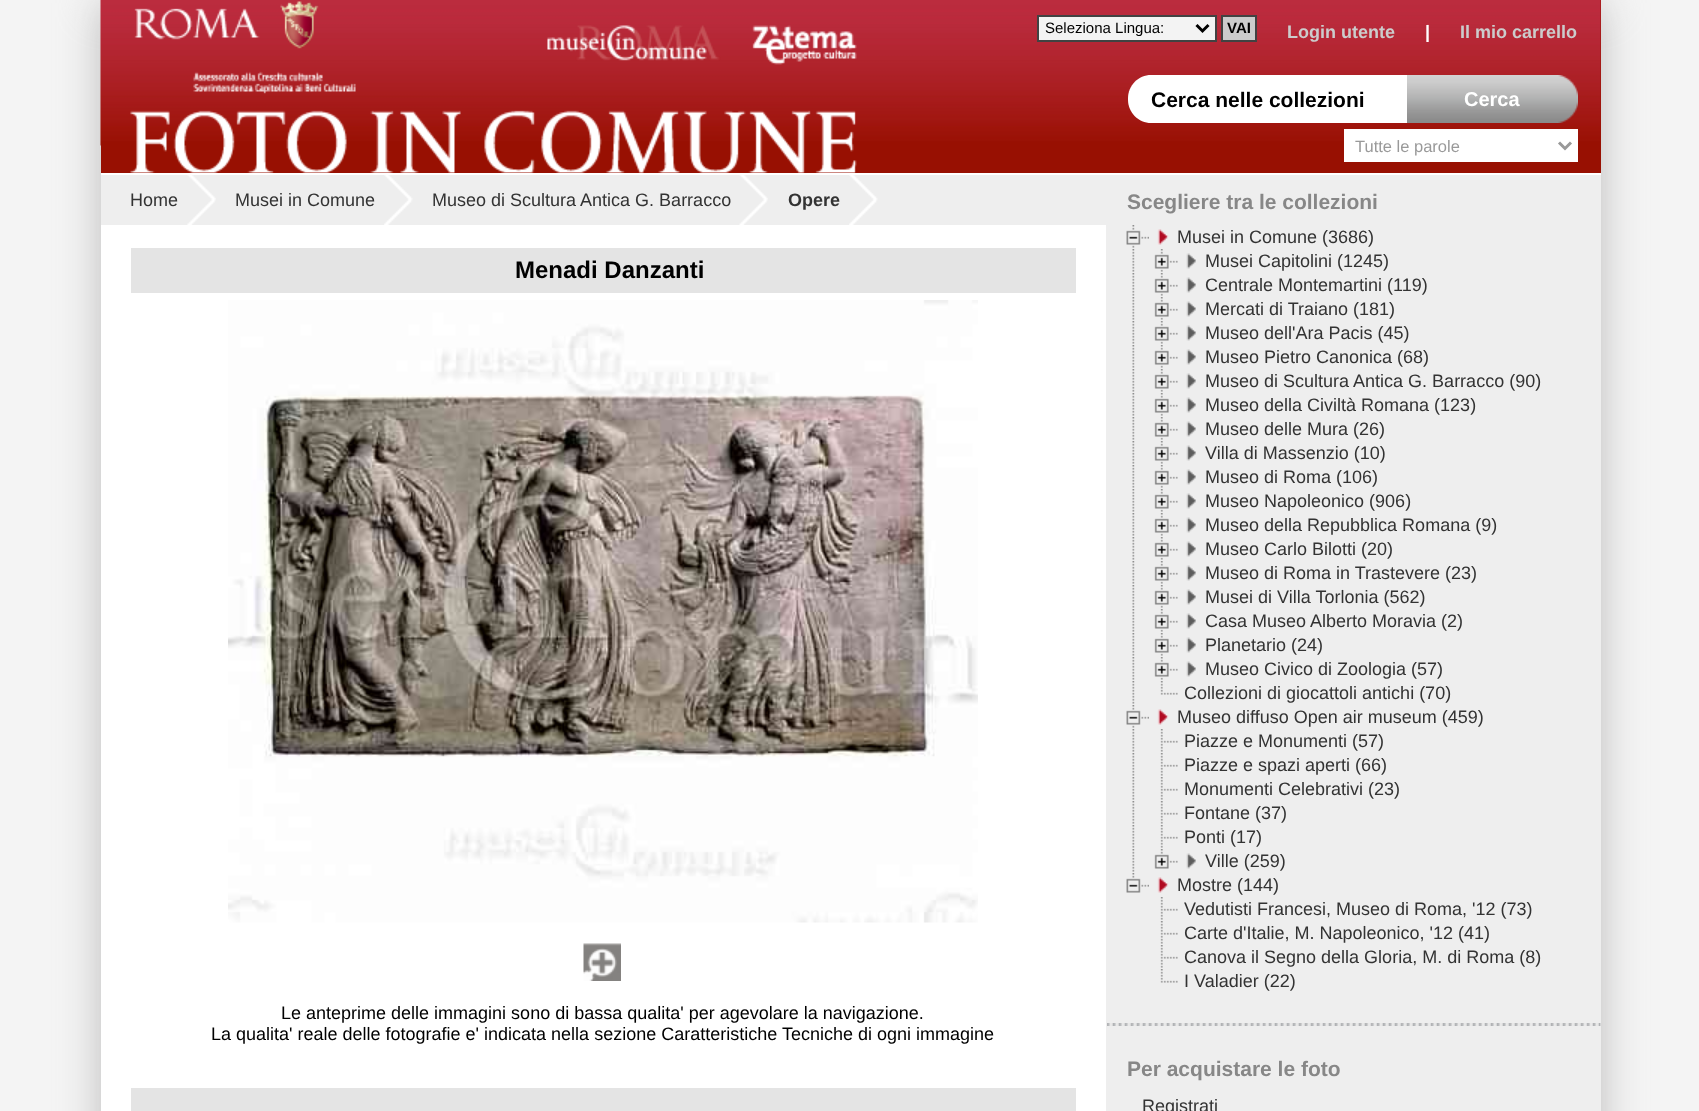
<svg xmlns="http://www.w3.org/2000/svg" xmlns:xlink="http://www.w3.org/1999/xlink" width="1699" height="1111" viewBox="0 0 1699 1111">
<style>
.cls-1{font:15px Liberation Sans;fill:#000000}
.cls-2{font:bold 15px Liberation Sans;fill:#000000}
.cls-3{font:bold 18px Liberation Sans;fill:#cccccc}
.cls-4{font:bold 18px Liberation Sans;fill:#ffffff}
.cls-5{font:bold 21px Liberation Sans;fill:#000000}
.cls-6{font:bold 20px Liberation Sans;fill:#ffffff}
.cls-7{font:16.5px Liberation Sans;fill:#999999}
.cls-8{font:18px Liberation Sans;fill:#333333}
.cls-9{font:bold 18px Liberation Sans;fill:#333333}
.cls-10{font:bold 24px Liberation Sans;fill:#000000}
.cls-11{font:18px Liberation Sans;fill:#000000}
.cls-12{font:bold 21px Liberation Sans;fill:#878787}
</style>
<rect width="100%" height="100%" fill="#f4f4f4"/>
<rect fill="#bcbbbb" filter="blur(21px)" x="101" y="3" width="1500" height="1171"/>
<rect fill="#ffffff" x="101" y="225" width="1005" height="886"/>
<rect fill="#981002" x="101" y="0" width="1500" height="173"/>
<image xlink:href="image0.png" x="100" y="0" width="1501" height="146"/>
<image xlink:href="image1.png" x="130" y="1" width="727" height="172"/>
<rect fill="#f3f3f3" stroke="#424242" stroke-width="2" x="1038" y="16" width="178" height="25"/>
<path fill="none" stroke="#000000" stroke-width="3" d="M1196.5 25L1202.5 31L1208.5 25"/>
<rect fill="#cccccc" stroke="#424242" stroke-width="2" x="1222" y="16" width="34" height="25"/>
<path fill="#ffffff" d="M1151 75H1407V123H1151C1138.5 123 1128 112.5 1128 100V98C1128 85.5 1138.5 75 1151 75Z"/>
<image xlink:href="image2.png" x="1407" y="75" width="171" height="48"/>
<rect fill="#ffffff" x="1344" y="129" width="234" height="33"/>
<path fill="none" stroke="#999999" stroke-width="3" d="M1559 142.5L1565 148.5L1571 142.5"/>
<rect fill="#eeeeee" x="101" y="175" width="1005" height="50"/>
<image xlink:href="image3.png" x="187" y="175" width="29" height="50"/>
<image xlink:href="image4.png" x="384" y="175" width="29" height="50"/>
<image xlink:href="image5.png" x="739" y="175" width="29" height="50"/>
<image xlink:href="image6.png" x="849" y="175" width="29" height="50"/>
<rect fill="#e4e4e4" x="131" y="248" width="945" height="45"/>
<image xlink:href="image7.png" x="228" y="300" width="750" height="623"/>
<image xlink:href="image8.png" x="583" y="943" width="38" height="38"/>
<rect fill="#e4e4e4" x="131" y="1088" width="945" height="23"/>
<rect fill="#eeeeee" x="1106" y="175" width="495" height="936"/>
<rect fill="#ffffff" x="101" y="173" width="1500" height="2"/>
<image xlink:href="image9.png" x="1126" y="225" width="23" height="23"/>
<image xlink:href="image10.png" x="1157" y="229" width="12" height="16"/>
<image xlink:href="image11.png" x="1132" y="249" width="3" height="23"/>
<image xlink:href="image12.png" x="1154" y="249" width="24" height="23"/>
<image xlink:href="image13.png" x="1186" y="253" width="10" height="16"/>
<image xlink:href="image11.png" x="1132" y="273" width="3" height="23"/>
<image xlink:href="image12.png" x="1154" y="273" width="24" height="23"/>
<image xlink:href="image13.png" x="1186" y="277" width="10" height="16"/>
<image xlink:href="image11.png" x="1132" y="297" width="3" height="23"/>
<image xlink:href="image12.png" x="1154" y="297" width="24" height="23"/>
<image xlink:href="image13.png" x="1186" y="301" width="10" height="16"/>
<image xlink:href="image11.png" x="1132" y="321" width="3" height="23"/>
<image xlink:href="image12.png" x="1154" y="321" width="24" height="23"/>
<image xlink:href="image13.png" x="1186" y="325" width="10" height="16"/>
<image xlink:href="image11.png" x="1132" y="345" width="3" height="23"/>
<image xlink:href="image12.png" x="1154" y="345" width="24" height="23"/>
<image xlink:href="image13.png" x="1186" y="349" width="10" height="16"/>
<image xlink:href="image11.png" x="1132" y="369" width="3" height="23"/>
<image xlink:href="image12.png" x="1154" y="369" width="24" height="23"/>
<image xlink:href="image13.png" x="1186" y="373" width="10" height="16"/>
<image xlink:href="image11.png" x="1132" y="393" width="3" height="23"/>
<image xlink:href="image12.png" x="1154" y="393" width="24" height="23"/>
<image xlink:href="image13.png" x="1186" y="397" width="10" height="16"/>
<image xlink:href="image11.png" x="1132" y="417" width="3" height="23"/>
<image xlink:href="image12.png" x="1154" y="417" width="24" height="23"/>
<image xlink:href="image13.png" x="1186" y="421" width="10" height="16"/>
<image xlink:href="image11.png" x="1132" y="441" width="3" height="23"/>
<image xlink:href="image12.png" x="1154" y="441" width="24" height="23"/>
<image xlink:href="image13.png" x="1186" y="445" width="10" height="16"/>
<image xlink:href="image11.png" x="1132" y="465" width="3" height="23"/>
<image xlink:href="image12.png" x="1154" y="465" width="24" height="23"/>
<image xlink:href="image13.png" x="1186" y="469" width="10" height="16"/>
<image xlink:href="image11.png" x="1132" y="489" width="3" height="23"/>
<image xlink:href="image12.png" x="1154" y="489" width="24" height="23"/>
<image xlink:href="image13.png" x="1186" y="493" width="10" height="16"/>
<image xlink:href="image11.png" x="1132" y="513" width="3" height="23"/>
<image xlink:href="image12.png" x="1154" y="513" width="24" height="23"/>
<image xlink:href="image13.png" x="1186" y="517" width="10" height="16"/>
<image xlink:href="image11.png" x="1132" y="537" width="3" height="23"/>
<image xlink:href="image12.png" x="1154" y="537" width="24" height="23"/>
<image xlink:href="image13.png" x="1186" y="541" width="10" height="16"/>
<image xlink:href="image11.png" x="1132" y="561" width="3" height="23"/>
<image xlink:href="image12.png" x="1154" y="561" width="24" height="23"/>
<image xlink:href="image13.png" x="1186" y="565" width="10" height="16"/>
<image xlink:href="image11.png" x="1132" y="585" width="3" height="23"/>
<image xlink:href="image12.png" x="1154" y="585" width="24" height="23"/>
<image xlink:href="image13.png" x="1186" y="589" width="10" height="16"/>
<image xlink:href="image11.png" x="1132" y="609" width="3" height="23"/>
<image xlink:href="image12.png" x="1154" y="609" width="24" height="23"/>
<image xlink:href="image13.png" x="1186" y="613" width="10" height="16"/>
<image xlink:href="image11.png" x="1132" y="633" width="3" height="23"/>
<image xlink:href="image12.png" x="1154" y="633" width="24" height="23"/>
<image xlink:href="image13.png" x="1186" y="637" width="10" height="16"/>
<image xlink:href="image11.png" x="1132" y="657" width="3" height="23"/>
<image xlink:href="image12.png" x="1154" y="657" width="24" height="23"/>
<image xlink:href="image13.png" x="1186" y="661" width="10" height="16"/>
<image xlink:href="image11.png" x="1132" y="681" width="3" height="23"/>
<image xlink:href="image14.png" x="1160" y="681" width="18" height="14"/>
<image xlink:href="image9.png" x="1126" y="705" width="23" height="23"/>
<image xlink:href="image10.png" x="1157" y="709" width="12" height="16"/>
<image xlink:href="image11.png" x="1132" y="729" width="3" height="23"/>
<image xlink:href="image15.png" x="1160" y="729" width="18" height="23"/>
<image xlink:href="image11.png" x="1132" y="753" width="3" height="23"/>
<image xlink:href="image15.png" x="1160" y="753" width="18" height="23"/>
<image xlink:href="image11.png" x="1132" y="777" width="3" height="23"/>
<image xlink:href="image15.png" x="1160" y="777" width="18" height="23"/>
<image xlink:href="image11.png" x="1132" y="801" width="3" height="23"/>
<image xlink:href="image15.png" x="1160" y="801" width="18" height="23"/>
<image xlink:href="image11.png" x="1132" y="825" width="3" height="23"/>
<image xlink:href="image15.png" x="1160" y="825" width="18" height="23"/>
<image xlink:href="image11.png" x="1132" y="849" width="3" height="23"/>
<image xlink:href="image16.png" x="1154" y="849" width="24" height="20"/>
<image xlink:href="image13.png" x="1186" y="853" width="10" height="16"/>
<image xlink:href="image17.png" x="1126" y="873" width="23" height="20"/>
<image xlink:href="image10.png" x="1157" y="877" width="12" height="16"/>
<image xlink:href="image15.png" x="1160" y="897" width="18" height="23"/>
<image xlink:href="image15.png" x="1160" y="921" width="18" height="23"/>
<image xlink:href="image15.png" x="1160" y="945" width="18" height="23"/>
<image xlink:href="image14.png" x="1160" y="969" width="18" height="14"/>
<image xlink:href="image18.png" x="1107" y="1023" width="494" height="3"/>
<text class="cls-1" x="1045" y="33">Seleziona Lingua:</text>
<text class="cls-2" x="1227" y="33">VAI</text>
<text class="cls-3" x="1287" y="38">Login utente</text>
<text class="cls-4" x="1425" y="38">|</text>
<text class="cls-3" x="1460" y="38">Il mio carrello</text>
<text class="cls-5" x="1151" y="107">Cerca nelle collezioni</text>
<text class="cls-6" x="1464" y="106">Cerca</text>
<text class="cls-7" x="1355" y="152">Tutte le parole</text>
<text class="cls-8" x="130" y="206">Home</text>
<text class="cls-8" x="235" y="206">Musei in Comune</text>
<text class="cls-8" x="432" y="206">Museo di Scultura Antica G. Barracco</text>
<text class="cls-9" x="788" y="206">Opere</text>
<text class="cls-10" x="515" y="278">Menadi Danzanti</text>
<text class="cls-11" x="281" y="1019">Le anteprime delle immagini sono di bassa qualita' per agevolare la navigazione.</text>
<text class="cls-11" x="211" y="1040">La qualita' reale delle fotografie e' indicata nella sezione Caratteristiche Tecniche di ogni immagine</text>
<text class="cls-12" x="1127" y="209">Scegliere tra le collezioni</text>
<text class="cls-8" x="1177" y="243">Musei in Comune (3686)</text>
<text class="cls-8"><tspan x="1205" y="267">Musei Capitolini (1245)</tspan><tspan x="1205" y="291">Centrale Montemartini (119)</tspan><tspan x="1205" y="315">Mercati di Traiano (181)</tspan><tspan x="1205" y="339">Museo dell'Ara Pacis (45)</tspan><tspan x="1205" y="363">Museo Pietro Canonica (68)</tspan><tspan x="1205" y="387">Museo di Scultura Antica G. Barracco (90)</tspan><tspan x="1205" y="411">Museo della Civiltà Romana (123)</tspan><tspan x="1205" y="435">Museo delle Mura (26)</tspan><tspan x="1205" y="459">Villa di Massenzio (10)</tspan><tspan x="1205" y="483">Museo di Roma (106)</tspan><tspan x="1205" y="507">Museo Napoleonico (906)</tspan><tspan x="1205" y="531">Museo della Repubblica Romana (9)</tspan><tspan x="1205" y="555">Museo Carlo Bilotti (20)</tspan><tspan x="1205" y="579">Museo di Roma in Trastevere (23)</tspan><tspan x="1205" y="603">Musei di Villa Torlonia (562)</tspan><tspan x="1205" y="627">Casa Museo Alberto Moravia (2)</tspan><tspan x="1205" y="651">Planetario (24)</tspan><tspan x="1205" y="675">Museo Civico di Zoologia (57)</tspan></text>
<text class="cls-8" x="1184" y="699">Collezioni di giocattoli antichi (70)</text>
<text class="cls-8" x="1177" y="723">Museo diffuso Open air museum (459)</text>
<text class="cls-8"><tspan x="1184" y="747">Piazze e Monumenti (57)</tspan><tspan x="1184" y="771">Piazze e spazi aperti (66)</tspan><tspan x="1184" y="795">Monumenti Celebrativi (23)</tspan><tspan x="1184" y="819">Fontane (37)</tspan><tspan x="1184" y="843">Ponti (17)</tspan></text>
<text class="cls-8" x="1205" y="867">Ville (259)</text>
<text class="cls-8" x="1177" y="891">Mostre (144)</text>
<text class="cls-8"><tspan x="1184" y="915">Vedutisti Francesi, Museo di Roma, '12 (73)</tspan><tspan x="1184" y="939">Carte d'Italie, M. Napoleonico, '12 (41)</tspan><tspan x="1184" y="963">Canova il Segno della Gloria, M. di Roma (8)</tspan><tspan x="1184" y="987">I Valadier (22)</tspan></text>
<text class="cls-12" x="1127" y="1076">Per acquistare le foto</text>
<text class="cls-8" x="1142" y="1112">Registrati</text>
</svg>
